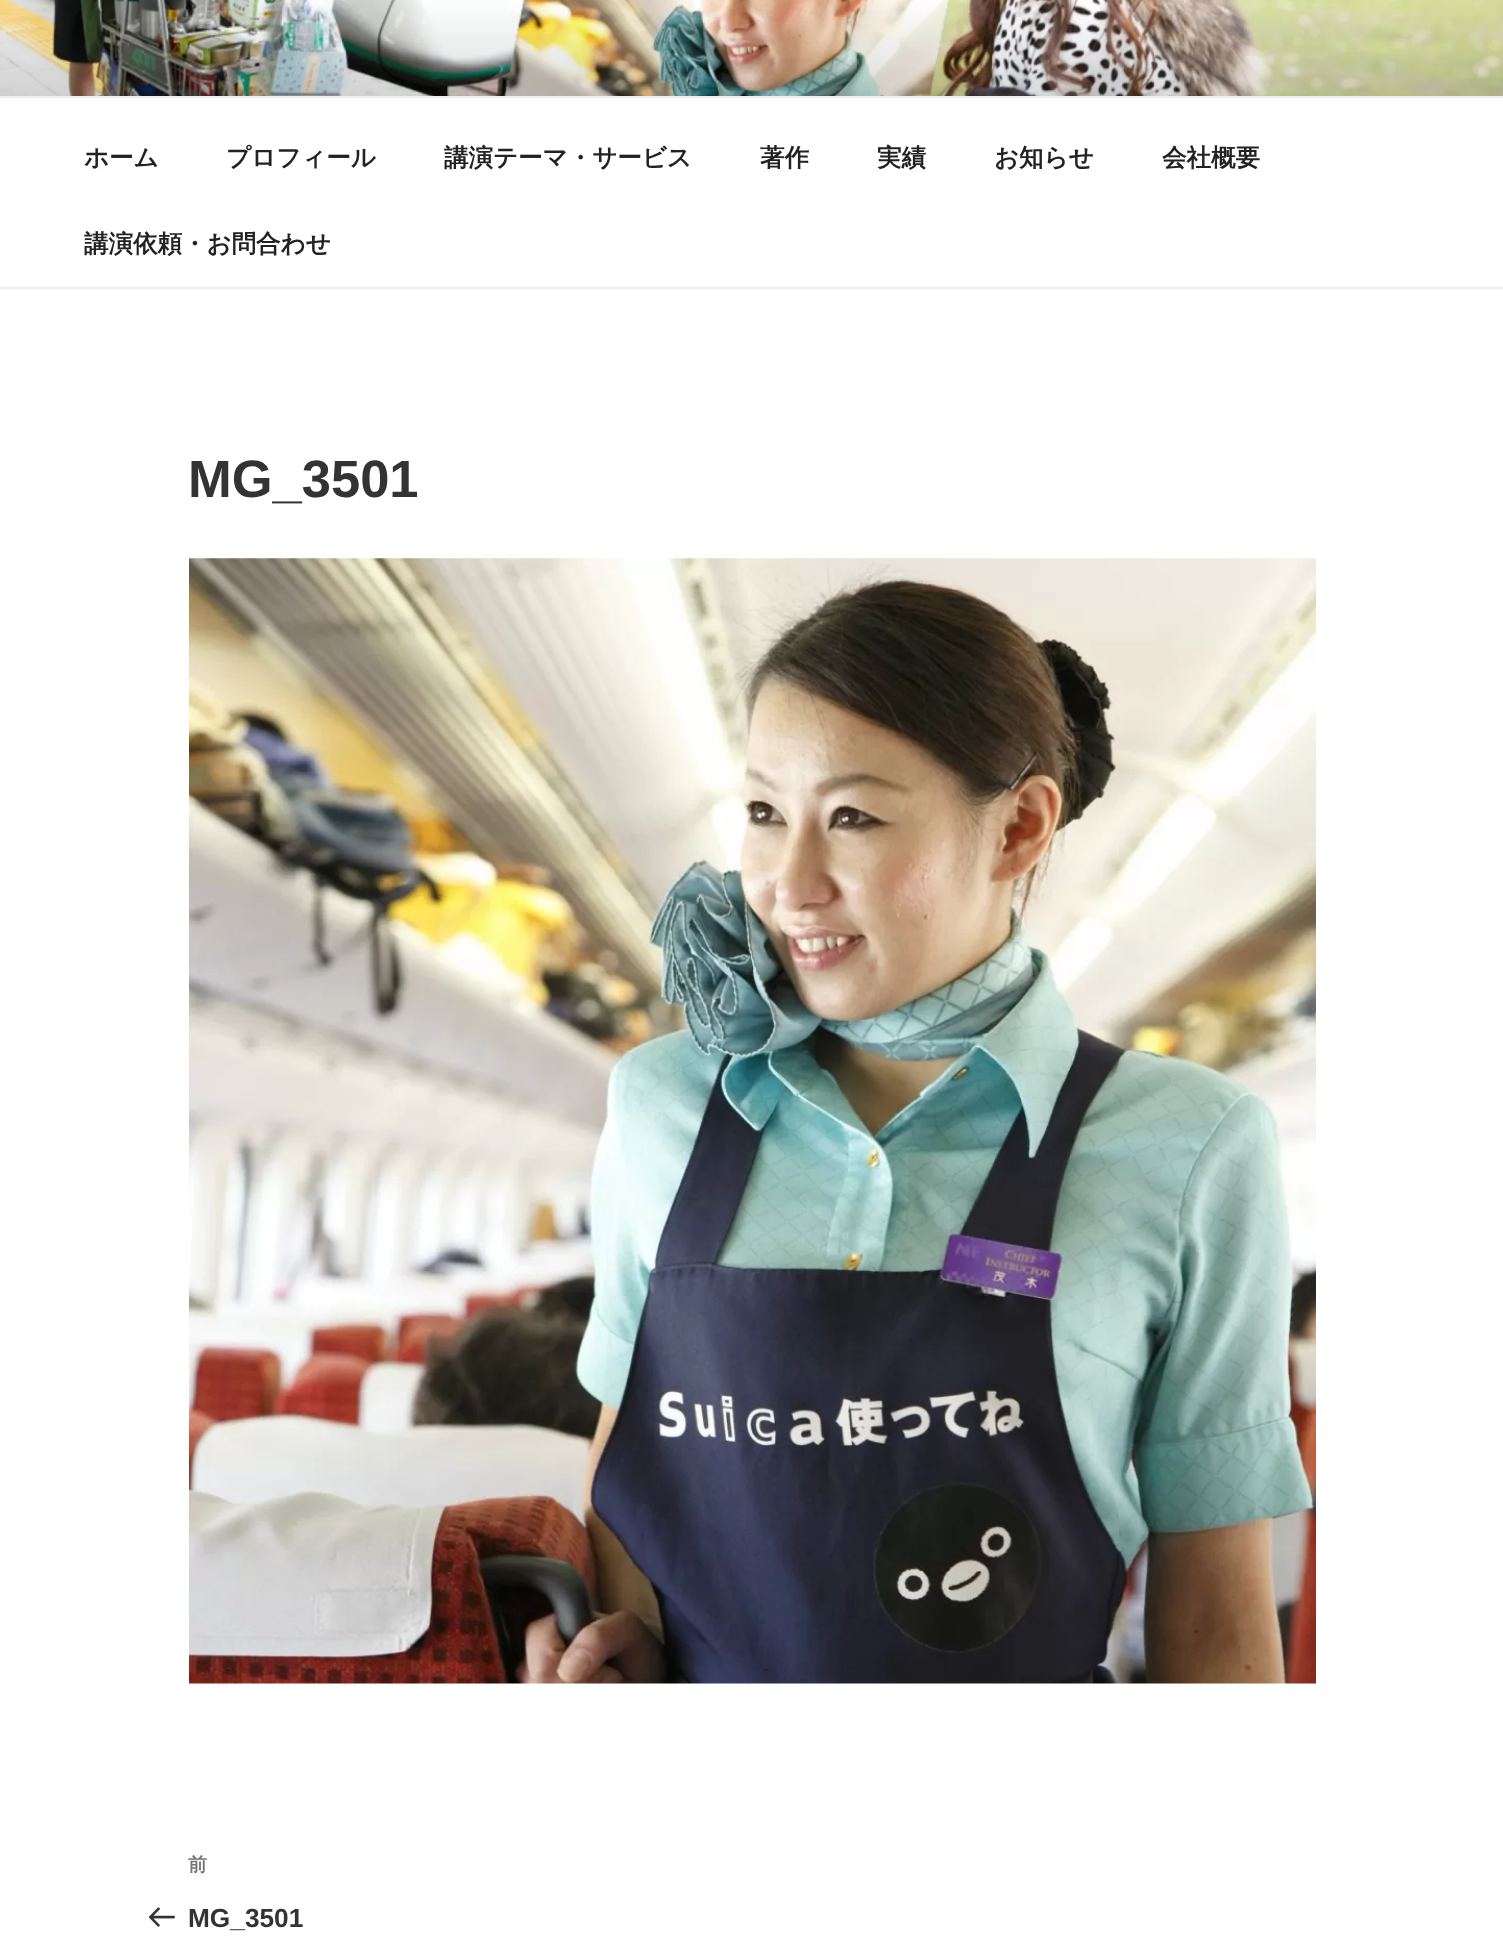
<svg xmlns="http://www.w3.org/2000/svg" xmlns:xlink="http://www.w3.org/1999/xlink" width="1503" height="1952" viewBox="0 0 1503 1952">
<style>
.cls-1{font:bold 24.5px WenQuanYi Zen Hei;fill:#222222}
.cls-2{font:bold 52.5px Liberation Sans;fill:#333333}
.cls-3{font:bold 19px WenQuanYi Zen Hei;fill:#767676}
.cls-4{font:bold 26.25px Liberation Sans;fill:#333333}
</style>
<rect width="100%" height="100%" fill="#ffffff"/>
<image xlink:href="image0.png" x="0" y="0" width="1503" height="96"/>
<rect fill="#eeeeee" x="0" y="96" width="1503" height="2"/>
<rect fill="#eeeeee" x="0" y="287" width="1503" height="2"/>
<image xlink:href="image1.png" x="189" y="558" width="1127" height="1126"/>
<image xlink:href="image2.png" x="149" y="1907" width="26" height="20"/>
<text class="cls-1" x="84" y="166">ホーム</text>
<text class="cls-1" x="226" y="166">プロフィール</text>
<text class="cls-1" x="444" y="166">講演テーマ・サービス</text>
<text class="cls-1" x="760" y="166">著作</text>
<text class="cls-1" x="877" y="166">実績</text>
<text class="cls-1" x="994" y="166">お知らせ</text>
<text class="cls-1" x="1162" y="166">会社概要</text>
<text class="cls-1" x="84" y="252">講演依頼・お問合わせ</text>
<text class="cls-2" x="188" y="497">MG_3501</text>
<text class="cls-3" x="188" y="1871">前</text>
<text class="cls-4" x="188" y="1927">MG_3501</text>
</svg>
